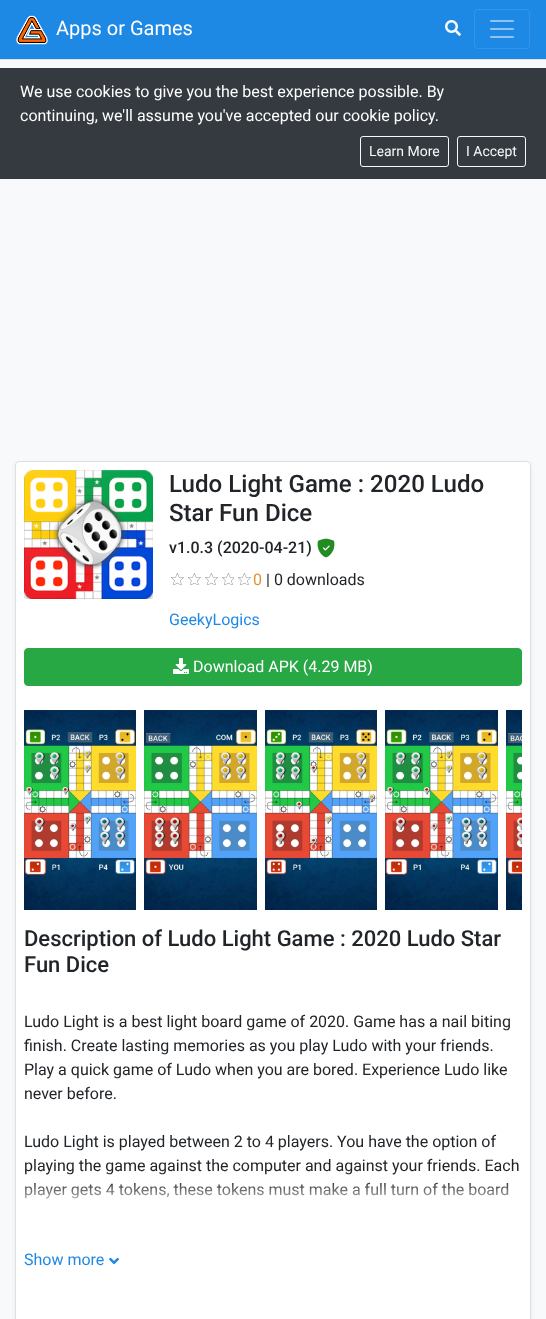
<svg xmlns="http://www.w3.org/2000/svg" xmlns:xlink="http://www.w3.org/1999/xlink" width="546" height="1319" viewBox="0 0 546 1319">
<style>
.cls-1{font:20px Roboto;fill:#ffffff}
.cls-2{font:16px Roboto;fill:#ffffff}
.cls-3{font:14px Roboto;fill:#f8f9fa}
.cls-4{font:500 24.1px Roboto;fill:#212529}
.cls-5{font:500 16px Roboto;fill:#212529}
.cls-6{font:16px Roboto;fill:#e19135}
.cls-7{font:16px Roboto;fill:#212529}
.cls-8{font:16px Roboto;fill:#1e88e5}
.cls-9{font:500 22px Roboto;fill:#212529}
</style>
<defs>
<linearGradient id="g1" gradientUnits="userSpaceOnUse" x1="273" y1="1180" x2="273" y2="1210"><stop offset="0" stop-color="#ffffff" stop-opacity="0"/><stop offset="1" stop-color="#ffffff"/></linearGradient>
</defs>
<rect width="100%" height="100%" fill="#f8f9fa"/>
<rect fill="#1e88e5" x="0" y="0" width="546" height="59"/>
<rect fill="#dee2e6" x="0" y="59" width="546" height="1"/>
<image xlink:href="image0.png" x="16" y="15" width="32" height="30"/>
<image xlink:href="image1.png" x="445" y="20" width="16" height="16"/>
<rect fill="none" stroke="#3594e8" x="474.5" y="9.5" width="55" height="39" rx="3.5"/>
<image xlink:href="image2.png" x="490" y="20" width="24" height="18"/>
<rect fill="#343a40" x="0" y="68" width="546" height="111"/>
<rect fill="none" stroke="#f8f9fa" x="360.5" y="136.5" width="88" height="30" rx="2.5"/>
<rect fill="none" stroke="#f8f9fa" x="457.5" y="136.5" width="68" height="30" rx="2.5"/>
<rect fill="#000000" fill-opacity="0.07" filter="blur(2px)" x="15" y="463" width="516" height="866" rx="4"/>
<rect fill="#ffffff" x="15" y="461" width="516" height="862" rx="4"/>
<rect fill="none" stroke="#000000" stroke-opacity="0.12" x="15.5" y="461.5" width="515" height="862" rx="3.5"/>
<image xlink:href="image3.png" x="24" y="470" width="129" height="129"/>
<image xlink:href="image4.png" x="317" y="538" width="18" height="20"/>
<image xlink:href="image5.png" x="171" y="573" width="13" height="12"/>
<image xlink:href="image5.png" x="188" y="573" width="13" height="12"/>
<image xlink:href="image5.png" x="205" y="573" width="13" height="12"/>
<image xlink:href="image6.png" x="222" y="573" width="12" height="12"/>
<image xlink:href="image5.png" x="238" y="573" width="13" height="12"/>
<rect fill="#28a745" stroke="#28a745" x="24.5" y="648.5" width="497" height="37" rx="3.5"/>
<image xlink:href="image7.png" x="173" y="658" width="16" height="16"/>
<image xlink:href="image8.png" x="24" y="710" width="112" height="200"/>
<image xlink:href="image9.png" x="144" y="710" width="113" height="200"/>
<image xlink:href="image10.png" x="265" y="710" width="112" height="200"/>
<image xlink:href="image11.png" x="385" y="710" width="113" height="200"/>
<image xlink:href="image12.png" x="506" y="710" width="16" height="200"/>
<image xlink:href="image13.png" x="109" y="1257" width="10" height="8"/>
<text class="cls-1" x="56" y="35">Apps or Games</text>
<text class="cls-2"><tspan x="20" y="97">We use cookies to give you the best experience possible. By</tspan><tspan x="20" y="121">continuing, we'll assume you've accepted our cookie policy.</tspan></text>
<text class="cls-3" x="369" y="156">Learn More</text>
<text class="cls-3" x="466" y="156">I Accept</text>
<text class="cls-4"><tspan x="169" y="492">Ludo Light Game : 2020 Ludo</tspan><tspan x="169" y="521">Star Fun Dice</tspan></text>
<text class="cls-5" x="169" y="553">v1.0.3 (2020-04-21)</text>
<text class="cls-6" x="253" y="585">0</text>
<text class="cls-7" x="266" y="585">| 0 downloads</text>
<text class="cls-8" x="169" y="625">GeekyLogics</text>
<text class="cls-2" x="193" y="672">Download APK (4.29 MB)</text>
<text class="cls-9"><tspan x="24" y="946">Description of Ludo Light Game : 2020 Ludo Star</tspan><tspan x="24" y="972">Fun Dice</tspan></text>
<text class="cls-7"><tspan x="24" y="1027">Ludo Light is a best light board game of 2020. Game has a nail biting</tspan><tspan x="24" y="1051">finish. Create lasting memories as you play Ludo with your friends.</tspan><tspan x="24" y="1075">Play a quick game of Ludo when you are bored. Experience Ludo like</tspan><tspan x="24" y="1099">never before.</tspan></text>
<text class="cls-7"><tspan x="24" y="1147">Ludo Light is played between 2 to 4 players. You have the option of</tspan><tspan x="24" y="1171">playing the game against the computer and against your friends. Each</tspan><tspan x="24" y="1195">player gets 4 tokens, these tokens must make a full turn of the board</tspan></text>
<rect fill="url(#g1)" x="25" y="1183" width="484" height="16"/>
<text class="cls-8" x="24" y="1265">Show more</text>
</svg>
